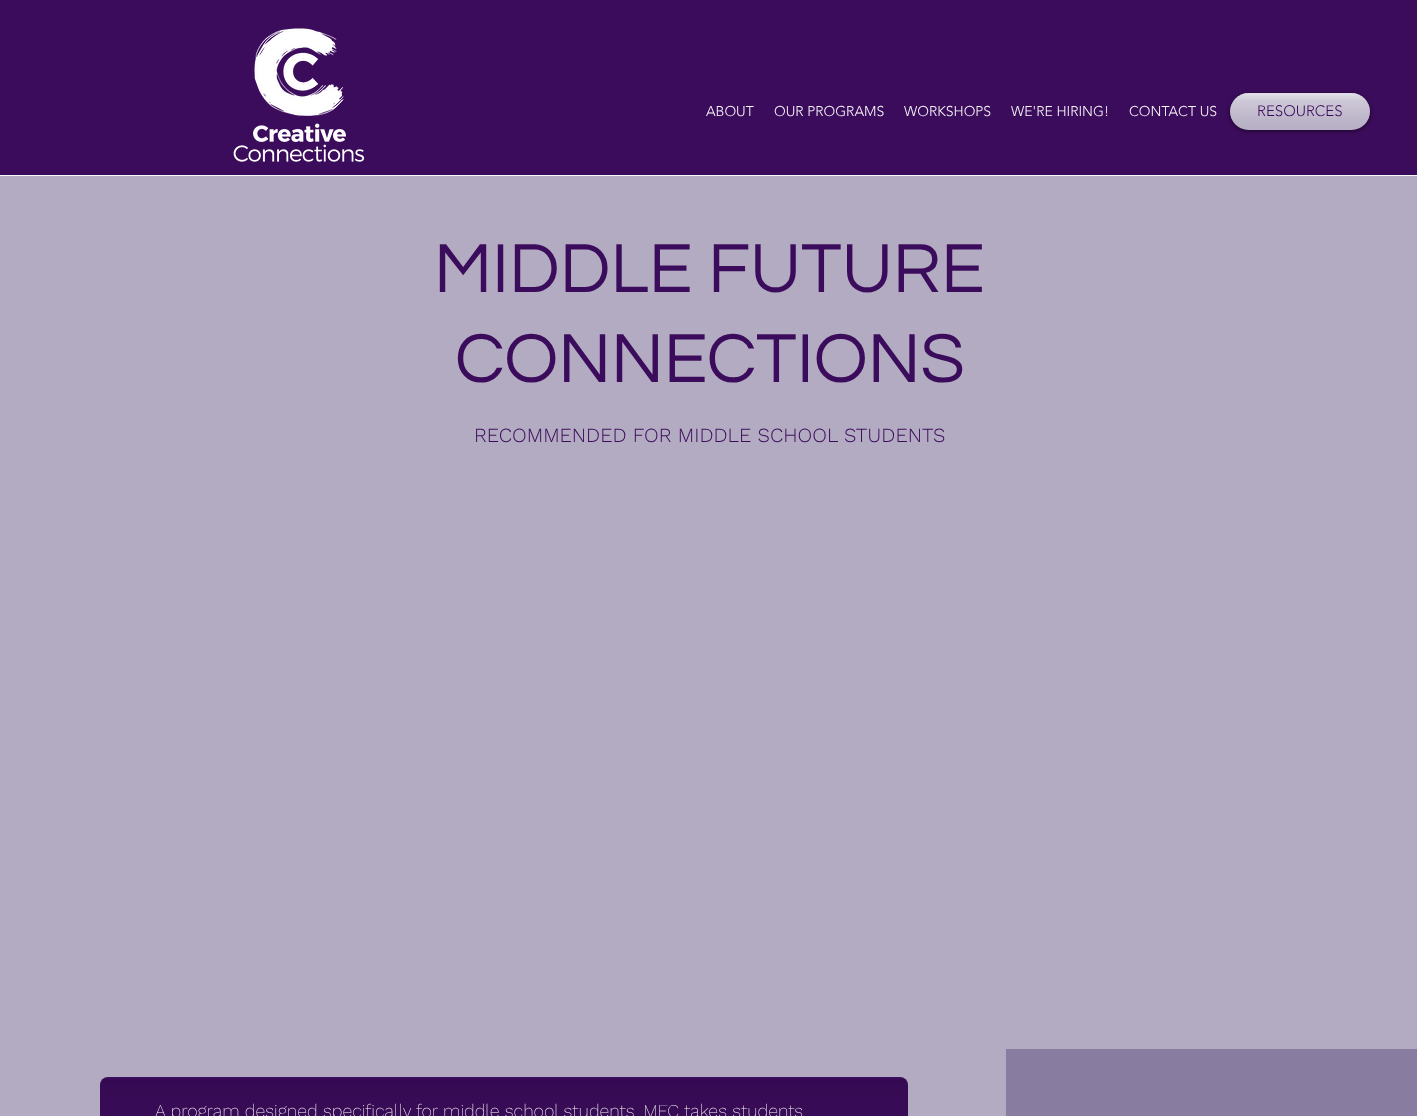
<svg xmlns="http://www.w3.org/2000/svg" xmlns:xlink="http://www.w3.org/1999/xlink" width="1417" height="1116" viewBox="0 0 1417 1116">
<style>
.cls-1{font:300 14px 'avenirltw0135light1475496';fill:#f8f7f8}
.cls-2{font:300 15px 'avenirltw0135light1475496';fill:#3c0c5c}
.cls-3{font:72px Questrial;fill:#3c0c5c}
.cls-4{font:300 20px Work Sans;fill:#3c0c5c}
.cls-5{font:200 18px Work Sans;fill:#f8f7f8}
</style>
<rect width="100%" height="100%" fill="#b3abc2"/>
<rect fill="#3c0c5c" x="0" y="0" width="1417" height="175"/>
<rect fill="#f8f7f8" x="0" y="175" width="1417" height="1"/>
<image xlink:href="image0.png" x="233" y="28" width="132" height="134"/>
<rect fill="#000000" fill-opacity="0.6" filter="blur(2px)" x="1230" y="94" width="140" height="37" rx="18.5"/>
<rect fill="#b3abc2" x="1230" y="93" width="140" height="37" rx="18.5"/>
<image xlink:href="image1.png" x="1230" y="93" width="140" height="37"/>
<rect fill="#3c0c5c" x="100" y="1077" width="808" height="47" rx="8"/>
<image xlink:href="image2.png" x="100" y="1079" width="808" height="37"/>
<rect fill="#887ca0" x="1006" y="1049" width="411" height="67"/>
<text class="cls-1" x="706" y="116">ABOUT</text>
<text class="cls-1" x="774" y="116">OUR PROGRAMS</text>
<text class="cls-1" x="904" y="116">WORKSHOPS</text>
<text class="cls-1" x="1011" y="116">WE'RE HIRING!</text>
<text class="cls-1" x="1129" y="116">CONTACT US</text>
<text class="cls-2" x="1257" y="116">RESOURCES</text>
<text class="cls-3" x="434" y="292">MIDDLE FUTURE</text>
<text class="cls-3" x="455" y="382">CONNECTIONS</text>
<text class="cls-4" x="474" y="442">RECOMMENDED FOR MIDDLE SCHOOL STUDENTS</text>
<text class="cls-5" x="155" y="1117">A program designed specifically for middle school students, MFC takes students</text>
</svg>
